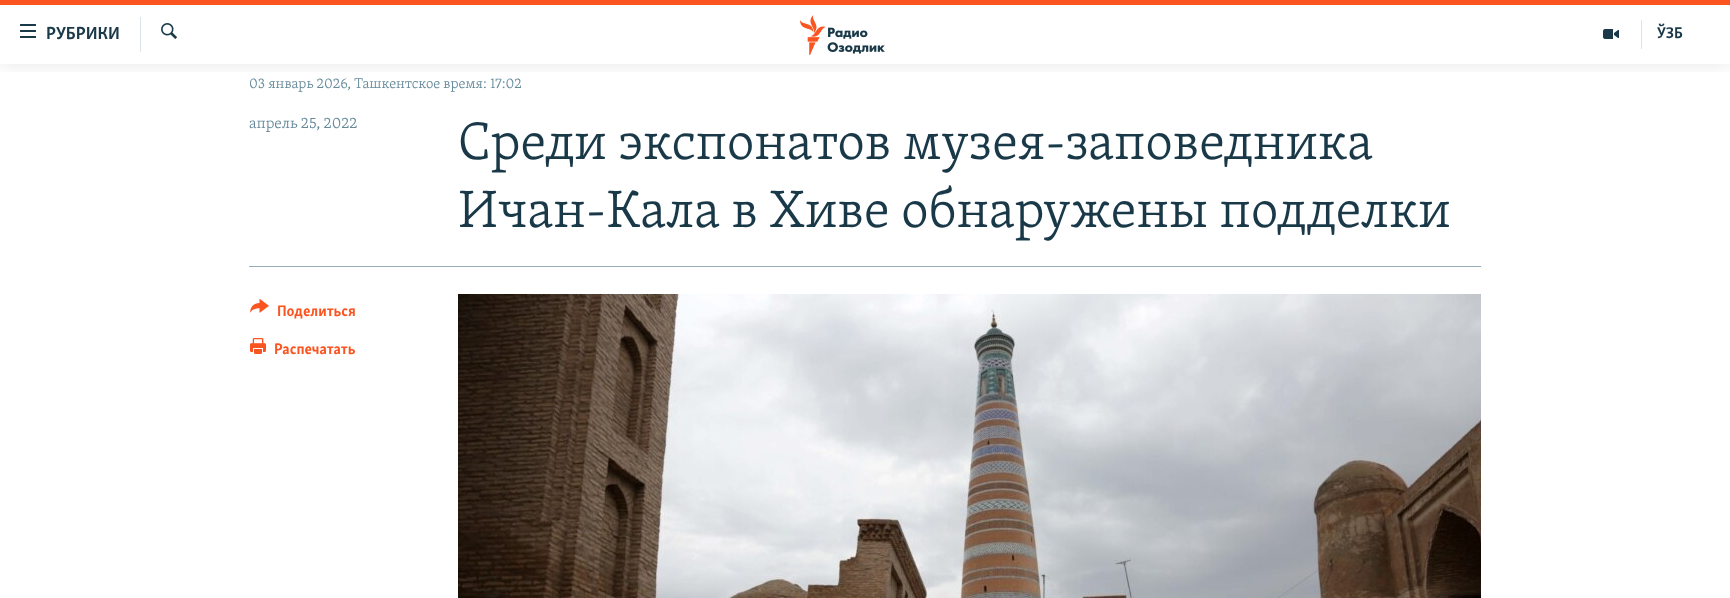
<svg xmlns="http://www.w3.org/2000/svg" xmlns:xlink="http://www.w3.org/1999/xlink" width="1730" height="598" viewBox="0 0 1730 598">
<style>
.cls-1{font:bold 18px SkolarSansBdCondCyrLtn;fill:#1a3948}
.cls-2{font:bold 16px SkolarSansBdCondCyrLtn;fill:#1a3948}
.cls-3{font:300 14.6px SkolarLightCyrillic;fill:#678a9b}
.cls-4{font:300 15.75px SkolarLightCyrillic;fill:#678a9b}
.cls-5{font:300 54px SkolarLightCyrillic;fill:#1a3948}
.cls-6{font:bold 15.75px SkolarSansBdCondCyrLtn;fill:#fa5420}
</style>
<defs>
<clipPath id="clip1"><rect x="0" y="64" width="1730" height="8"/></clipPath>
</defs>
<rect width="100%" height="100%" fill="#ffffff"/>
<g clip-path="url(#clip1)">
<rect fill="#000000" fill-opacity="0.1" filter="blur(10px)" x="0" y="0" width="1730" height="64"/>
</g>
<rect fill="#fa5420" x="0" y="0" width="1730" height="5"/>
<image xlink:href="image0.png" x="20" y="24" width="16" height="14"/>
<rect fill="#dce4e8" x="140" y="17" width="1" height="35"/>
<image xlink:href="image1.png" x="161" y="23" width="16" height="16"/>
<image xlink:href="image2.png" x="800" y="15" width="85" height="40"/>
<rect fill="#dce4e8" x="1641" y="20" width="1" height="29"/>
<image xlink:href="image3.png" x="1603" y="29" width="16" height="10"/>
<rect fill="#95adb9" x="249" y="266" width="1232" height="1"/>
<image xlink:href="image4.png" x="250" y="298" width="19" height="15"/>
<image xlink:href="image5.png" x="250" y="338" width="16" height="16"/>
<image xlink:href="image6.png" x="458" y="294" width="1023" height="304"/>
<text class="cls-1" x="46" y="39">РУБРИКИ</text>
<text class="cls-2" x="1657" y="38">ЎЗБ</text>
<text class="cls-3" x="249" y="88">03 январь 2026, Ташкентское время: 17:02</text>
<text class="cls-4" x="249" y="128">апрель 25, 2022</text>
<text class="cls-5"><tspan x="458" y="159">Среди экспонатов музея-заповедника</tspan><tspan x="458" y="227">Ичан-Кала в Хиве обнаружены подделки</tspan></text>
<text class="cls-6" x="277" y="316">Поделиться</text>
<text class="cls-6" x="274" y="354">Распечатать</text>
</svg>
